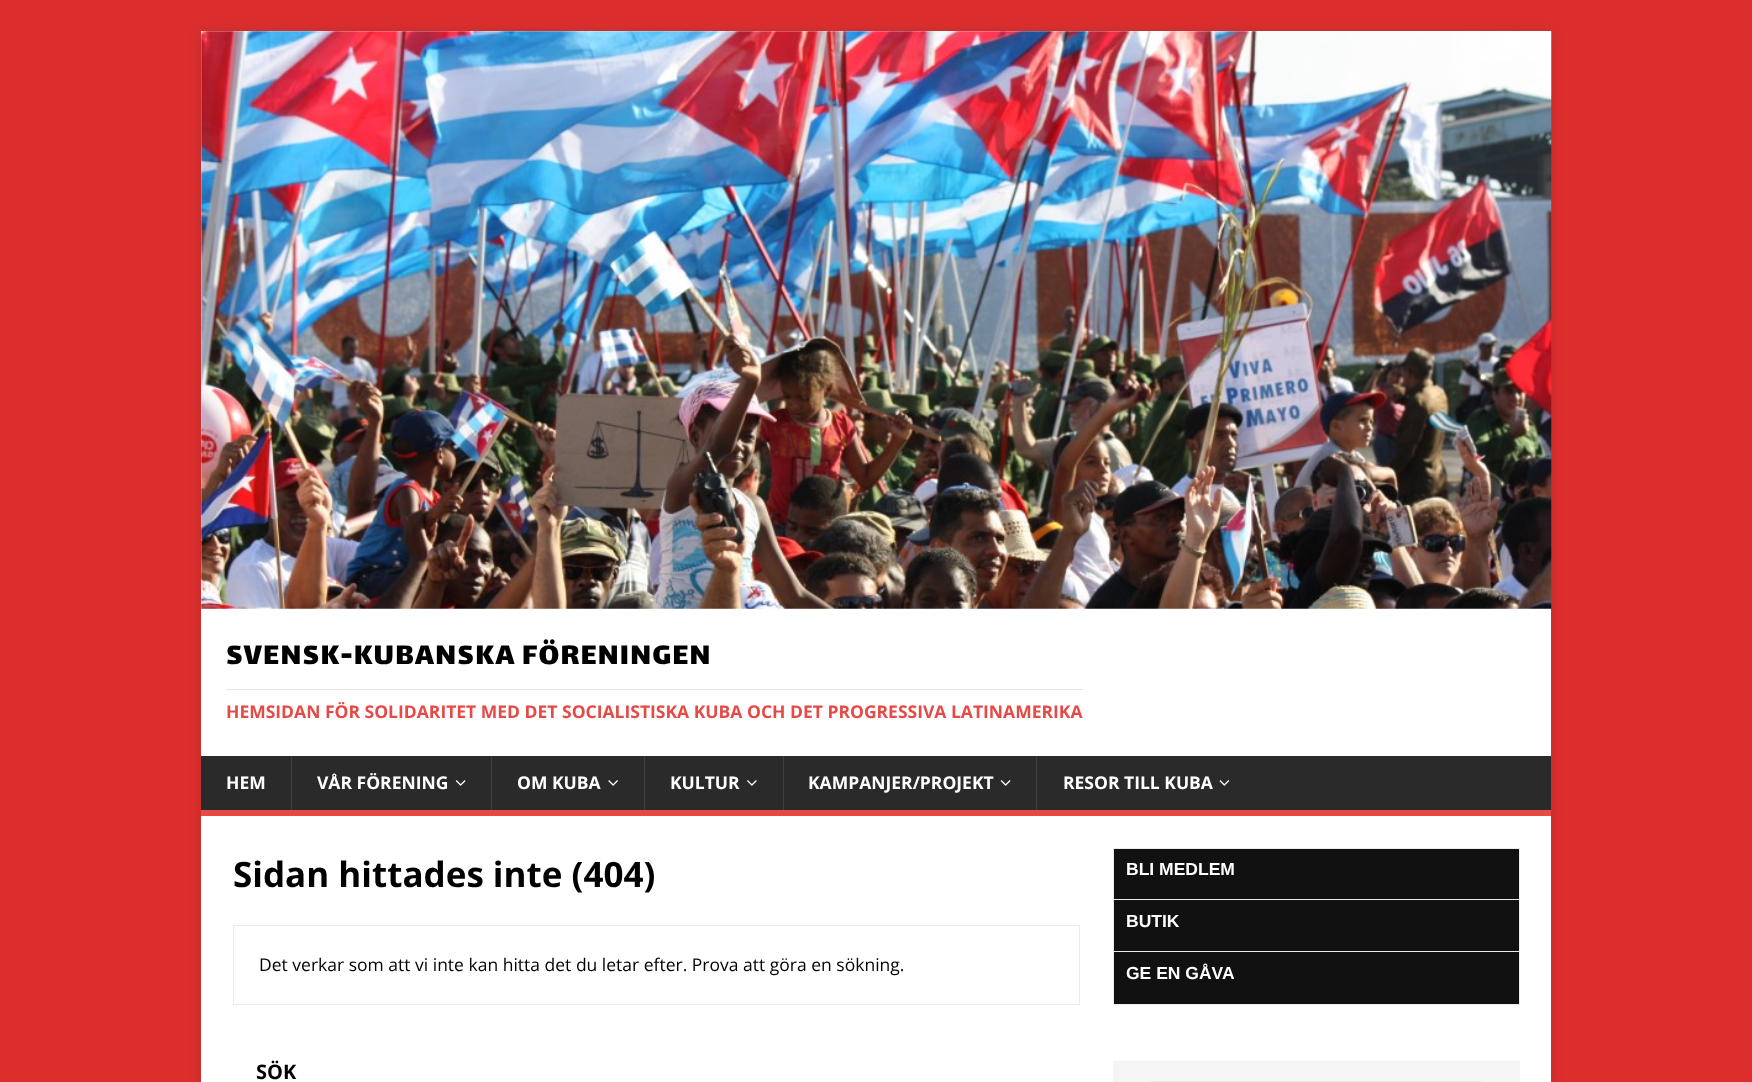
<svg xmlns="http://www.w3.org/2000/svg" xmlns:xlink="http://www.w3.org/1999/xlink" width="1752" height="1082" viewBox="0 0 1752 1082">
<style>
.cls-1{font:32.5px Lalezar;letter-spacing:1.25px;fill:#000000}
.cls-2{font:bold 17.5px Open Sans;fill:#e64946}
.cls-3{font:bold 17.5px Open Sans;fill:#ffffff}
.cls-4{font:bold 35px Open Sans;fill:#000000}
.cls-5{font:17.5px Open Sans;fill:#000000}
.cls-6{font:bold 20px Open Sans;fill:#000000}
.cls-7{font:bold 17.5px Liberation Sans;fill:#ffffff}
</style>
<rect width="100%" height="100%" fill="#dd2e2e"/>
<rect fill="#323232" fill-opacity="0.17" filter="blur(6px)" x="201" y="31" width="1350" height="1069"/>
<rect fill="#ffffff" x="201" y="31" width="1350" height="725"/>
<image xlink:href="image0.png" x="201" y="31" width="1351" height="578"/>
<rect fill="#e5e5e5" x="226" y="689" width="857" height="1"/>
<rect fill="#2a2a2a" x="201" y="756" width="1350" height="54"/>
<rect fill="#e64946" x="201" y="810" width="1350" height="6"/>
<rect fill="#3f3f3f" x="291" y="756" width="1" height="54"/>
<image xlink:href="image1.png" x="455" y="780" width="11" height="6"/>
<rect fill="#3f3f3f" x="491" y="756" width="1" height="54"/>
<image xlink:href="image2.png" x="608" y="780" width="10" height="6"/>
<rect fill="#3f3f3f" x="644" y="756" width="1" height="54"/>
<image xlink:href="image3.png" x="747" y="780" width="10" height="6"/>
<rect fill="#3f3f3f" x="783" y="756" width="1" height="54"/>
<image xlink:href="image1.png" x="1000" y="780" width="11" height="6"/>
<rect fill="#3f3f3f" x="1036" y="756" width="1" height="54"/>
<image xlink:href="image4.png" x="1219" y="780" width="11" height="6"/>
<rect fill="#ffffff" x="201" y="816" width="1350" height="266"/>
<rect fill="none" stroke="#ebebeb" x="233.5" y="925.5" width="846" height="79"/>
<rect fill="#121111" x="1114" y="849" width="405" height="155"/>
<rect fill="#ebebeb" x="1113" y="848" width="407" height="1"/>
<rect fill="#ebebeb" x="1113" y="848" width="1" height="157"/>
<rect fill="#ebebeb" x="1519" y="848" width="1" height="157"/>
<rect fill="#ebebeb" x="1113" y="899" width="407" height="1"/>
<rect fill="#ebebeb" x="1113" y="951" width="407" height="1"/>
<rect fill="#ebebeb" x="1113" y="1004" width="407" height="1"/>
<rect fill="#f5f5f5" x="1113" y="1061" width="407" height="21"/>
<rect fill="none" stroke="#ebebeb" x="1151.5" y="1081.5" width="329" height="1"/>
<text class="cls-1" x="226" y="664">SVENSK-KUBANSKA FÖRENINGEN</text>
<text class="cls-2" x="226" y="718">HEMSIDAN FÖR SOLIDARITET MED DET SOCIALISTISKA KUBA OCH DET PROGRESSIVA LATINAMERIKA</text>
<text class="cls-3" x="226" y="789">HEM</text>
<text class="cls-3" x="317" y="789">VÅR FÖRENING</text>
<text class="cls-3" x="517" y="789">OM KUBA</text>
<text class="cls-3" x="670" y="789">KULTUR</text>
<text class="cls-3" x="808" y="789">KAMPANJER/PROJEKT</text>
<text class="cls-3" x="1063" y="789">RESOR TILL KUBA</text>
<text class="cls-4" x="233" y="887">Sidan hittades inte (404)</text>
<text class="cls-5" x="259" y="971">Det verkar som att vi inte kan hitta det du letar efter. Prova att göra en sökning.</text>
<text class="cls-6" x="256" y="1079">SÖK</text>
<text class="cls-7" x="1126" y="875">BLI MEDLEM</text>
<text class="cls-7" x="1126" y="927">BUTIK</text>
<text class="cls-7" x="1126" y="979">GE EN GÅVA</text>
</svg>
